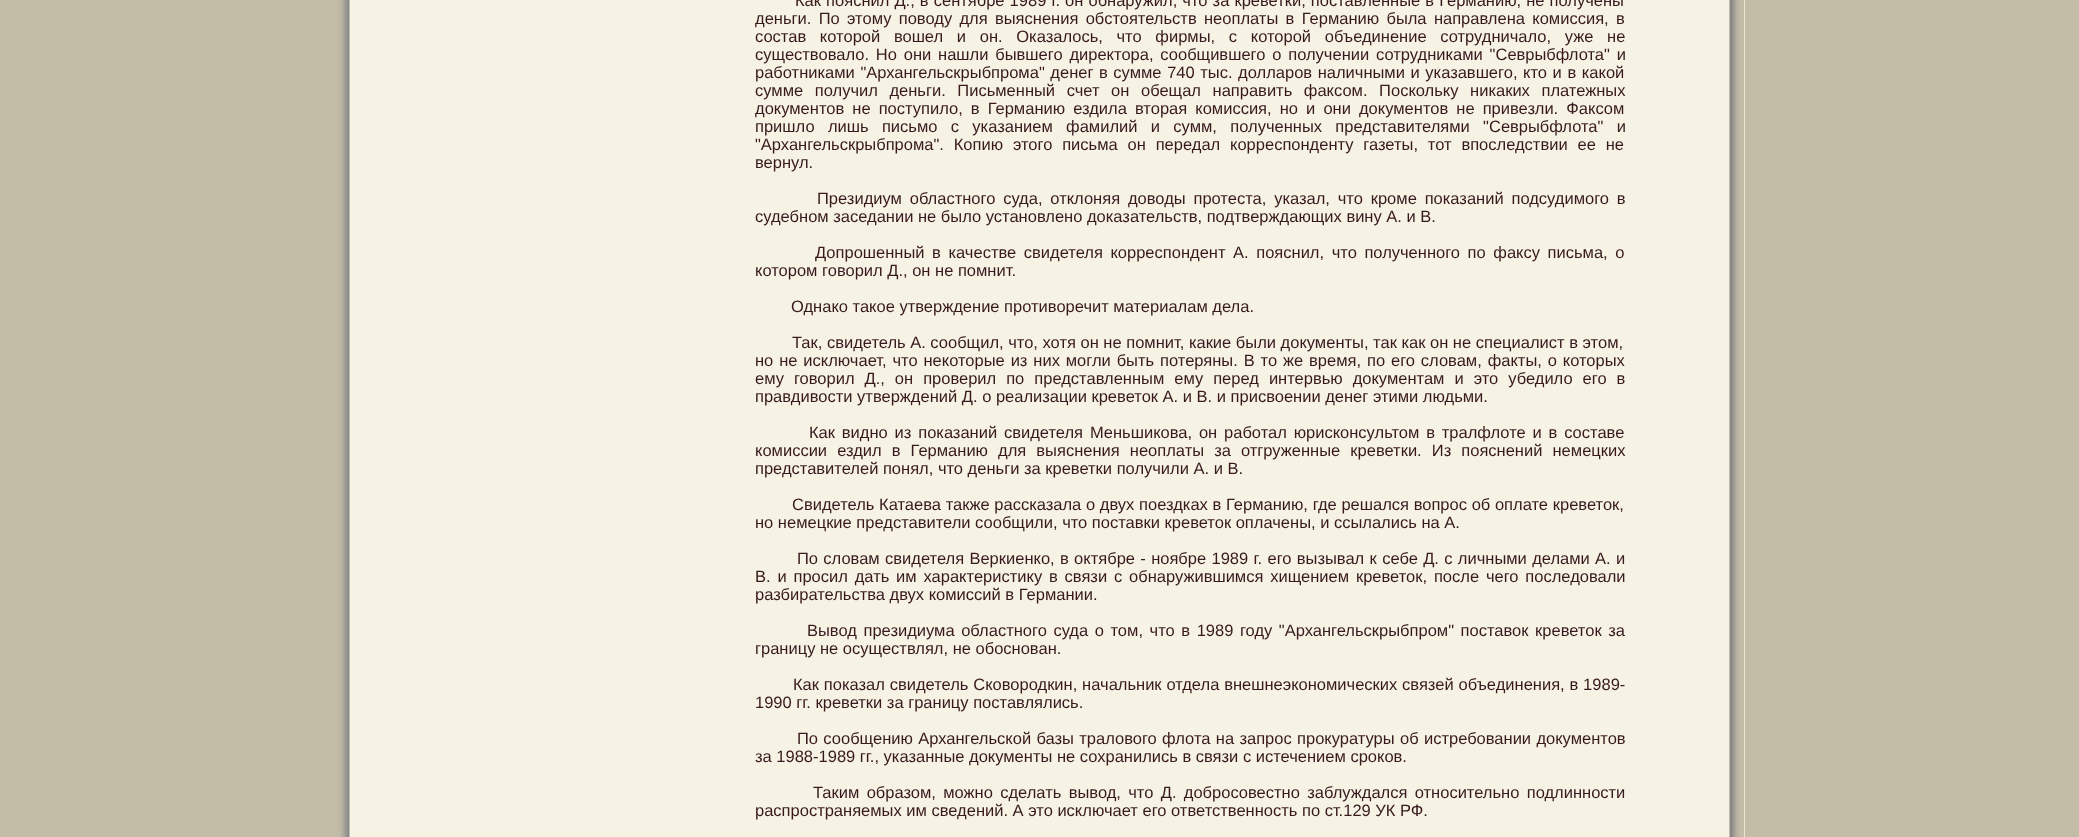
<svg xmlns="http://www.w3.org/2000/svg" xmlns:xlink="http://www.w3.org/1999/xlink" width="2079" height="837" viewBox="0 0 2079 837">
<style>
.cls-1{font:16.5px Liberation Sans;fill:#37191e}
</style>
<rect width="100%" height="100%" fill="#c3bca7"/>
<rect fill="#f7f3e4" x="349" y="0" width="1396" height="837"/>
<image xlink:href="image0.png" x="335" y="0" width="1410" height="837"/>
<text class="cls-1" x="795" y="6" word-spacing="0.5">Как пояснил Д., в сентябре 1989 г. он обнаружил, что за креветки, поставленные в Германию, не получены</text>
<text class="cls-1"><tspan x="755" y="24" word-spacing="2.75">деньги. По этому поводу для выяснения обстоятельств неоплаты в Германию была направлена комиссия, в</tspan><tspan x="755" y="42" word-spacing="9.1">состав которой вошел и он. Оказалось, что фирмы, с которой объединение сотрудничало, уже не</tspan><tspan x="755" y="60" word-spacing="2.25">существовало. Но они нашли бывшего директора, сообщившего о получении сотрудниками "Севрыбфлота" и</tspan><tspan x="755" y="78" word-spacing="1">работниками "Архангельскрыбпрома" денег в сумме 740 тыс. долларов наличными и указавшего, кто и в какой</tspan><tspan x="755" y="96" word-spacing="7">сумме получил деньги. Письменный счет он обещал направить факсом. Поскольку никаких платежных</tspan><tspan x="755" y="114" word-spacing="3.5">документов не поступило, в Германию ездила вторая комиссия, но и они документов не привезли. Факсом</tspan><tspan x="755" y="132" word-spacing="8.75">пришло лишь письмо с указанием фамилий и сумм, полученных представителями "Севрыбфлота" и</tspan><tspan x="755" y="150" word-spacing="5.25">"Архангельскрыбпрома". Копию этого письма он передал корреспонденту газеты, тот впоследствии ее не</tspan><tspan x="755" y="168">вернул.</tspan></text>
<text class="cls-1" x="817" y="204" word-spacing="3.25">Президиум областного суда, отклоняя доводы протеста, указал, что кроме показаний подсудимого в</text>
<text class="cls-1" x="755" y="222">судебном заседании не было установлено доказательств, подтверждающих вину А. и В.</text>
<text class="cls-1" x="815" y="258" word-spacing="3">Допрошенный в качестве свидетеля корреспондент А. пояснил, что полученного по факсу письма, о</text>
<text class="cls-1" x="755" y="276">котором говорил Д., он не помнит.</text>
<text class="cls-1" x="791" y="312">Однако такое утверждение противоречит материалам дела.</text>
<text class="cls-1" x="792" y="348">Так, свидетель А. сообщил, что, хотя он не помнит, какие были документы, так как он не специалист в этом,</text>
<text class="cls-1"><tspan x="755" y="366" word-spacing="1.3">но не исключает, что некоторые из них могли быть потеряны. В то же время, по его словам, факты, о которых</tspan><tspan x="755" y="384" word-spacing="5.4">ему говорил Д., он проверил по представленным ему перед интервью документам и это убедило его в</tspan><tspan x="755" y="402">правдивости утверждений Д. о реализации креветок А. и В. и присвоении денег этими людьми.</tspan></text>
<text class="cls-1" x="809" y="438" word-spacing="2.25">Как видно из показаний свидетеля Меньшикова, он работал юрисконсультом в тралфлоте и в составе</text>
<text class="cls-1"><tspan x="755" y="456" word-spacing="5.5">комиссии ездил в Германию для выяснения неоплаты за отгруженные креветки. Из пояснений немецких</tspan><tspan x="755" y="474">представителей понял, что деньги за креветки получили А. и В.</tspan></text>
<text class="cls-1" x="792" y="510" word-spacing="0.1">Свидетель Катаева также рассказала о двух поездках в Германию, где решался вопрос об оплате креветок,</text>
<text class="cls-1" x="755" y="528">но немецкие представители сообщили, что поставки креветок оплачены, и ссылались на А.</text>
<text class="cls-1" x="797" y="564" word-spacing="0.75">По словам свидетеля Веркиенко, в октябре - ноябре 1989 г. его вызывал к себе Д. с личными делами А. и</text>
<text class="cls-1"><tspan x="755" y="582" word-spacing="2.25">В. и просил дать им характеристику в связи с обнаружившимся хищением креветок, после чего последовали</tspan><tspan x="755" y="600">разбирательства двух комиссий в Германии.</tspan></text>
<text class="cls-1" x="807" y="636" word-spacing="2">Вывод президиума областного суда о том, что в 1989 году "Архангельскрыбпром" поставок креветок за</text>
<text class="cls-1" x="755" y="654">границу не осуществлял, не обоснован.</text>
<text class="cls-1" x="793" y="690" word-spacing="0.25">Как показал свидетель Сковородкин, начальник отдела внешнеэкономических связей объединения, в 1989-</text>
<text class="cls-1" x="755" y="708">1990 гг. креветки за границу поставлялись.</text>
<text class="cls-1" x="797" y="744" word-spacing="0.75">По сообщению Архангельской базы тралового флота на запрос прокуратуры об истребовании документов</text>
<text class="cls-1" x="755" y="762">за 1988-1989 гг., указанные документы не сохранились в связи с истечением сроков.</text>
<text class="cls-1" x="813" y="798" word-spacing="2.75">Таким образом, можно сделать вывод, что Д. добросовестно заблуждался относительно подлинности</text>
<text class="cls-1" x="755" y="816">распространяемых им сведений. А это исключает его ответственность по ст.129 УК РФ.</text>
</svg>
